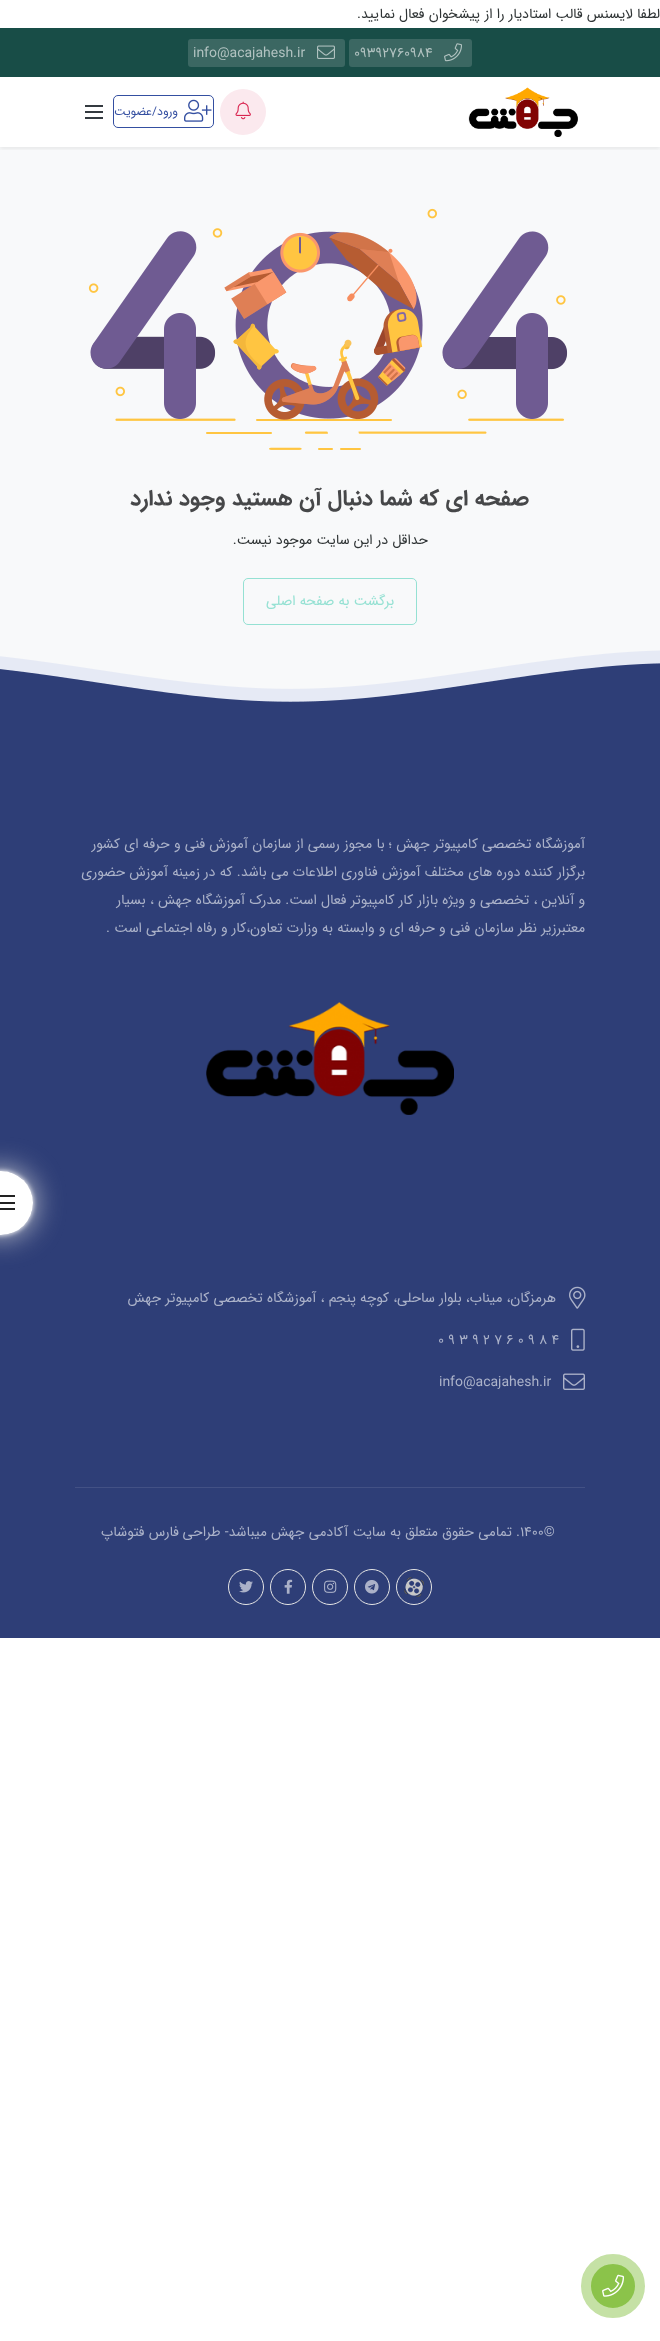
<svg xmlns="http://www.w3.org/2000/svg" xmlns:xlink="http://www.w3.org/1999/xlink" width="660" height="2341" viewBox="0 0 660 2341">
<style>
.cls-1{font:14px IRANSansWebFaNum;direction:rtl;fill:#2f3435}
.cls-2{font:14px IRANSansWebFaNum;fill:#b1c2c0}
.cls-3{font:12px IRANSansWebFaNum;direction:rtl;fill:#344fa1}
.cls-4{font:bold 22px IRANSansWebFaNum;direction:rtl;fill:#464749}
.cls-5{font:14px IRANSansWebFaNum;direction:rtl;fill:#95e1d3}
.cls-6{font:14px IRANSansWebFaNum;direction:rtl;fill:#abb2c9}
.cls-7{font:14px IRANSansWebFaNum;fill:#abb2c9}
</style>
<defs>
<clipPath id="clip1"><rect x="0" y="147" width="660" height="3"/></clipPath>
<clipPath id="clip2"><path d="M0 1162H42V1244H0ZM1 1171C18.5 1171 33 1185.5 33 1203C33 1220.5 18.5 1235 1 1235C-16.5 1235-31 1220.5-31 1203C-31 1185.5-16.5 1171 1 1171Z" clip-rule="evenodd"/></clipPath>
</defs>
<rect width="100%" height="100%" fill="#ffffff"/>
<rect fill="#f8f9fa" x="0" y="147" width="660" height="542"/>
<g clip-path="url(#clip1)">
<rect fill="#000000" fill-opacity="0.07" filter="blur(2px)" x="0" y="79" width="660" height="70"/>
</g>
<rect fill="#184d47" x="0" y="28" width="660" height="49"/>
<rect fill="#3b6762" x="349" y="39" width="123" height="28" rx="3"/>
<image xlink:href="image0.png" x="444" y="43" width="18" height="19"/>
<rect fill="#3b6762" x="188" y="39" width="157" height="28" rx="3"/>
<image xlink:href="image1.png" x="317" y="45" width="18" height="14"/>
<image xlink:href="image2.png" x="468" y="87" width="110" height="50"/>
<circle fill="#fbe9ee" cx="243" cy="112" r="23"/>
<image xlink:href="image3.png" x="235" y="101" width="16" height="19"/>
<rect fill="none" stroke="#344fa1" x="113.5" y="95.5" width="100" height="32" rx="4.5"/>
<image xlink:href="image4.png" x="184" y="99" width="28" height="23"/>
<rect fill="#343a40" x="85" y="111" width="18" height="2"/>
<rect fill="#343a40" x="85" y="105" width="18" height="2"/>
<rect fill="#343a40" x="85" y="117" width="18" height="2"/>
<image xlink:href="image5.png" x="88" y="208" width="480" height="242"/>
<rect fill="none" stroke="#95e1d3" x="243.5" y="578.5" width="173" height="46" rx="4.5"/>
<image xlink:href="image6.png" x="0" y="650" width="660" height="56"/>
<rect fill="#2e3e77" x="0" y="706" width="660" height="932"/>
<image xlink:href="image7.png" x="206" y="1002" width="248" height="113"/>
<image xlink:href="image8.png" x="569" y="1286" width="17" height="23"/>
<image xlink:href="image9.png" x="571" y="1328" width="14" height="23"/>
<image xlink:href="image10.png" x="563" y="1373" width="22" height="17"/>
<rect fill="#435185" x="75" y="1487" width="510" height="1"/>
<circle fill="none" stroke="#e5e5e5" cx="414" cy="1587" r="17.5"/>
<image xlink:href="image11.png" x="404" y="1577" width="20" height="20"/>
<circle fill="none" stroke="#e5e5e5" cx="372" cy="1587" r="17.5"/>
<image xlink:href="image12.png" x="365" y="1580" width="14" height="14"/>
<circle fill="none" stroke="#e5e5e5" cx="330" cy="1587" r="17.5"/>
<image xlink:href="image13.png" x="324" y="1580" width="13" height="13"/>
<circle fill="none" stroke="#e5e5e5" cx="288" cy="1587" r="17.5"/>
<image xlink:href="image14.png" x="284" y="1579" width="9" height="15"/>
<circle fill="none" stroke="#e5e5e5" cx="246" cy="1587" r="17.5"/>
<image xlink:href="image15.png" x="239" y="1581" width="14" height="12"/>
<rect fill="#dcdcdc" filter="blur(15px)" x="-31" y="1171" width="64" height="64" rx="32"/>
<circle fill="#ffffff" cx="1" cy="1203" r="32"/>
<g clip-path="url(#clip2)">
<rect fill="#ffffff" filter="blur(2.5px)" x="-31" y="1171" width="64" height="64" rx="32"/>
</g>
<rect fill="#222222" x="0" y="1195" width="15" height="2"/>
<rect fill="#222222" x="0" y="1202" width="15" height="2"/>
<rect fill="#222222" x="0" y="1208" width="15" height="2"/>
<circle fill="#8bc34a" stroke="#c5e1a5" stroke-width="10" cx="613" cy="2286" r="27"/>
<image xlink:href="image16.png" x="602" y="2274" width="23" height="23"/>
<text class="cls-1" x="660" y="18">لطفا لایسنس قالب استادیار را از</text>
<text class="cls-1" x="480" y="18">پیشخوان فعال نمایید.</text>
<text class="cls-2" x="354" y="57">09392760984</text>
<text class="cls-2" x="193" y="57">info@acajahesh.ir</text>
<text class="cls-3" x="178" y="115">ورود/عضویت</text>
<text class="cls-4" x="529" y="505">صفحه ای که شما دنبال آن هستید وجود ندارد</text>
<text class="cls-1" x="428" y="544">حداقل در این سایت موجود نیست.</text>
<text class="cls-5" x="394" y="605">برگشت به صفحه اصلی</text>
<text class="cls-6" x="585" y="848">آموزشگاه تخصصی کامپیوتر جهش ؛ با مجوز رسمی از سازمان آموزش فنی و حرفه ای کشور</text>
<text class="cls-6" x="585" y="876">برگزار کننده دوره های مختلف آموزش فناوری اطلاعات می باشد. که در زمینه آموزش حضوری</text>
<text class="cls-6" x="585" y="904">و آنلاین ، تخصصی و ویژه بازار کار کامپیوتر فعال است. مدرک آموزشگاه جهش ، بسیار</text>
<text class="cls-6" x="585" y="932">معتبرزیر نظر سازمان فنی و حرفه ای و وابسته به وزارت تعاون،کار و رفاه اجتماعی است .</text>
<text class="cls-6" x="556" y="1302">هرمزگان، میناب، بلوار ساحلی، کوچه پنجم ، آموزشگاه تخصصی کامپیوتر جهش</text>
<text class="cls-7" x="438" y="1344">0 9 3 9 2 7 6 0 9 8 4</text>
<text class="cls-7" x="439" y="1386">info@acajahesh.ir</text>
<text class="cls-7" x="520" y="1536">1400©</text>
<text class="cls-6" x="520" y="1536">. تمامی حقوق متعلق به سایت آکادمی جهش میباشد- طراحی</text>
<text class="cls-6" x="179" y="1536">فارس فتوشاپ</text>
</svg>
